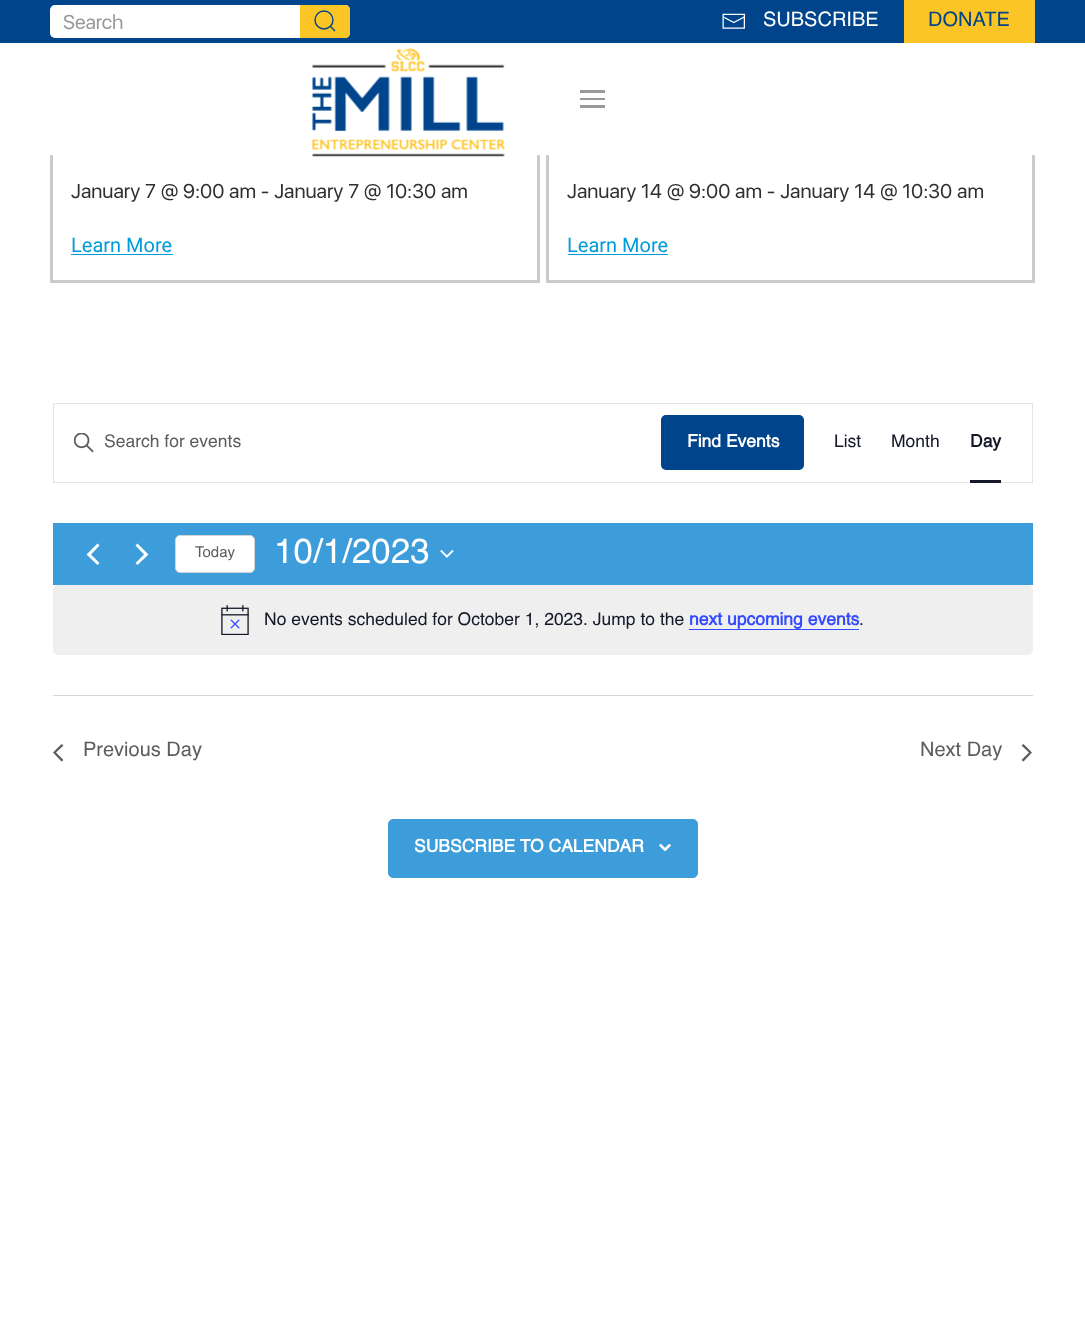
<svg xmlns="http://www.w3.org/2000/svg" xmlns:xlink="http://www.w3.org/1999/xlink" width="1085" height="1330" viewBox="0 0 1085 1330">
<style>
.cls-1{font:20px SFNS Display;fill:#999999}
.cls-2{font:20px Helvetica;fill:#ffffff}
.cls-3{font:20px Helvetica;fill:#00448b}
.cls-4{font:20px SFNS Display;fill:#2f2f2f}
.cls-5{font:20px Roboto;fill:#009cd9}
.cls-6{font:17.5px Helvetica;fill:#5d5d5d}
.cls-7{font:bold 17.5px Helvetica;fill:#ffffff}
.cls-8{font:17.5px Helvetica;fill:#141827}
.cls-9{font:bold 17.5px Helvetica;fill:#141827}
.cls-10{font:15px Helvetica;fill:#5d5d5d}
.cls-11{font:35px Helvetica;fill:#ffffff}
.cls-12{font:bold 17.5px Helvetica;fill:#334aff}
.cls-13{font:20px Helvetica;fill:#5d5d5d}
</style>
<rect width="100%" height="100%" fill="#ffffff"/>
<rect fill="#00448b" x="0" y="0" width="1085" height="43"/>
<rect fill="#ffffff" x="50" y="5" width="300" height="33" rx="5"/>
<path fill="#fbc526" d="M300 5H345C348 5 350 7 350 10V33C350 36 348 38 345 38H300Z"/>
<circle fill="none" stroke="#00448b" stroke-width="1.4" cx="324" cy="20" r="9"/>
<path fill="none" stroke="#00448b" stroke-width="1.4" d="M330 26L335 31Z"/>
<image xlink:href="image0.png" x="722" y="13" width="23" height="16"/>
<rect fill="#fbc526" x="904" y="0" width="131" height="43"/>
<rect fill="none" stroke="#cbcbcb" stroke-width="3" x="51.5" y="54.5" width="487" height="227"/>
<rect fill="none" stroke="#cbcbcb" stroke-width="3" x="547.5" y="54.5" width="486" height="227"/>
<rect fill="#ffffff" x="50" y="53" width="985" height="102"/>
<image xlink:href="image1.png" x="312" y="48" width="194" height="109"/>
<rect fill="#999999" x="580" y="98" width="25" height="2"/>
<rect fill="#999999" x="580" y="90" width="25" height="3"/>
<rect fill="#999999" x="580" y="105" width="25" height="3"/>
<rect fill="#009cd9" x="71" y="254" width="102" height="1"/>
<rect fill="#009cd9" x="568" y="254" width="100" height="1"/>
<rect fill="none" stroke="#e4e4e4" x="53.5" y="403.5" width="979" height="79"/>
<image xlink:href="image2.png" x="74" y="433" width="20" height="20"/>
<rect fill="#00448b" x="661" y="415" width="143" height="55" rx="5"/>
<rect fill="#141827" x="970" y="480" width="31" height="3"/>
<rect fill="#3d9dda" x="53" y="523" width="980" height="62"/>
<path fill="#ffffff" d="M99.5 563L97.5 565L86.5 554.5L97.5 543.5L99.5 545.5L91 554.5ZM135.5 545.5L137.5 543.5L148.5 554.5L137.5 565L135.5 563L144 554.5Z"/>
<rect fill="#ffffff" stroke="#d5d5d5" x="175.5" y="535.5" width="79" height="37" rx="4.5"/>
<image xlink:href="image3.png" x="440" y="549" width="14" height="9"/>
<rect fill="#efeff0" x="53" y="585" width="980" height="70" rx="5"/>
<image xlink:href="image4.png" x="221" y="605" width="28" height="30"/>
<rect fill="#334aff" x="689" y="629" width="170" height="1"/>
<rect fill="#d5d5d5" x="53" y="695" width="980" height="1"/>
<path fill="#5d5d5d" d="M63.5 760L61.5 761.5L53 752.5L61.5 744L63.5 745.5L56 752.5Z"/>
<path fill="#5d5d5d" d="M1021.5 745.5L1023.5 744L1032 752.5L1023.5 761.5L1021.5 760L1029 752.5Z"/>
<rect fill="#3d9dda" stroke="#3d9dda" x="388.5" y="819.5" width="309" height="58" rx="4.5"/>
<image xlink:href="image5.png" x="659" y="844" width="12" height="7"/>
<text class="cls-1" x="63" y="29">Search</text>
<text class="cls-2" x="763" y="26">SUBSCRIBE</text>
<text class="cls-3" x="928" y="26">DONATE</text>
<text class="cls-4" x="71" y="198">January 7 @ 9:00 am - January 7 @ 10:30 am</text>
<text class="cls-5" x="71" y="252">Learn More</text>
<text class="cls-4" x="567" y="198">January 14 @ 9:00 am - January 14 @ 10:30 am</text>
<text class="cls-5" x="567" y="252">Learn More</text>
<text class="cls-6" x="104" y="447">Search for events</text>
<text class="cls-7" x="687" y="447">Find Events</text>
<text class="cls-8" x="834" y="447">List</text>
<text class="cls-8" x="891" y="447">Month</text>
<text class="cls-9" x="970" y="447">Day</text>
<text class="cls-10" x="195" y="557">Today</text>
<text class="cls-11" x="274" y="563">10/1/2023</text>
<text class="cls-8" x="264" y="625">No events scheduled for October 1, 2023. Jump to the</text>
<text class="cls-12" x="689" y="625">next upcoming events</text>
<text class="cls-8" x="859" y="625">.</text>
<text class="cls-13" x="83" y="756">Previous Day</text>
<text class="cls-13" x="920" y="756">Next Day</text>
<text class="cls-7" x="414" y="852">SUBSCRIBE TO CALENDAR</text>
</svg>
